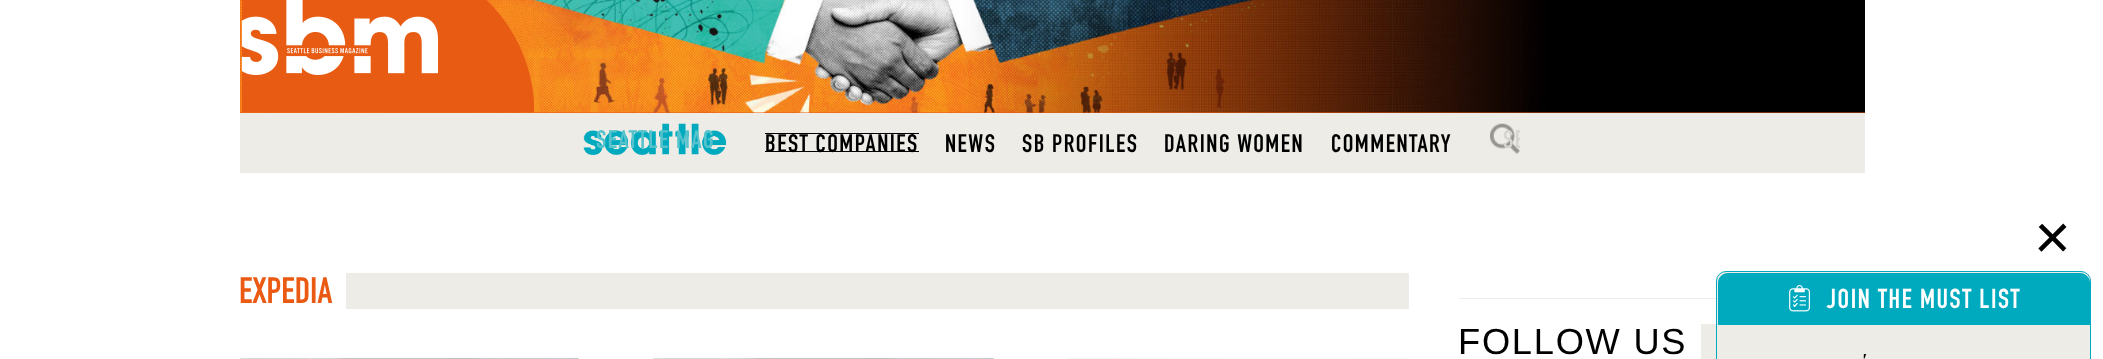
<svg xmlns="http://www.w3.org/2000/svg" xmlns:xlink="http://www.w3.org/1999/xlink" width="2103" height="359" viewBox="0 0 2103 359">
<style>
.cls-1{font:25px 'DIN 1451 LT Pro';letter-spacing:1.5px;fill:#56c2cc}
.cls-2{font:25px 'DIN 1451 LT Pro';letter-spacing:1.5px;fill:#000000}
.cls-3{font:25px 'DIN 1451 LT Pro';letter-spacing:1.5px;fill:#d5d4ce}
.cls-4{font:36.25px 'DIN 1451 LT Pro';fill:#ea5a12}
.cls-5{font:36.25px Liberation Sans;letter-spacing:1.75px;fill:#000000}
.cls-6{font:78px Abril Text;fill:#000000}
.cls-7{font:27px 'DIN 1451 LT Pro';letter-spacing:1.6px;fill:#ffffff}
.cls-8{font:italic bold 20px Liberation Serif;fill:#000000}
</style>
<defs>
<clipPath id="clip1"><rect x="1490" y="109" width="30" height="60"/></clipPath>
</defs>
<rect width="100%" height="100%" fill="#ffffff"/>
<rect fill="#ea5a12" x="240" y="112" width="1625" height="1"/>
<image xlink:href="image0.png" x="240" y="0" width="1625" height="113"/>
<image xlink:href="image1.png" x="241" y="0" width="293" height="113"/>
<rect fill="#edece6" x="240" y="113" width="1625" height="60"/>
<image xlink:href="image2.png" x="583" y="123" width="144" height="32"/>
<rect fill="#000000" x="765" y="133" width="154" height="1"/>
<rect fill="#000000" x="765" y="151" width="154" height="1"/>
<image xlink:href="image3.png" x="1490" y="123" width="30" height="31"/>
<rect fill="#edece6" x="346" y="273" width="1063" height="36"/>
<image xlink:href="image4.png" x="240" y="358" width="339" height="1"/>
<image xlink:href="image5.png" x="653" y="358" width="341" height="1"/>
<image xlink:href="image6.png" x="1069" y="358" width="339" height="1"/>
<rect fill="#edece6" x="1459" y="298" width="257" height="1"/>
<rect fill="#edece6" x="1701" y="324" width="15" height="35"/>
<rect fill="#edece6" stroke="#00aabe" x="1716.5" y="271.5" width="374" height="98" rx="9.5"/>
<path fill="#00aabe" d="M1728 273H2080C2085.5 273 2090 277.5 2090 283V325H1718V283C1718 277.5 1722.5 273 1728 273Z"/>
<image xlink:href="image7.png" x="1789" y="285" width="21" height="27"/>
<text class="cls-1" x="596" y="148">SEATTLE MAG</text>
<text class="cls-2" x="765" y="152">BEST COMPANIES</text>
<text class="cls-2" x="945" y="152">NEWS</text>
<text class="cls-2" x="1022" y="152">SB PROFILES</text>
<text class="cls-2" x="1164" y="152">DARING WOMEN</text>
<text class="cls-2" x="1331" y="152">COMMENTARY</text>
<g clip-path="url(#clip1)">
<text class="cls-3" x="1503" y="148">SE</text>
</g>
<text class="cls-4" x="239" y="303">EXPEDIA</text>
<text class="cls-5" x="1458" y="354">FOLLOW US</text>
<text class="cls-6" x="2029" y="258">×</text>
<text class="cls-7" x="1827" y="308">JOIN THE MUST LIST</text>
<text class="cls-8" x="1861" y="367">'</text>
</svg>
